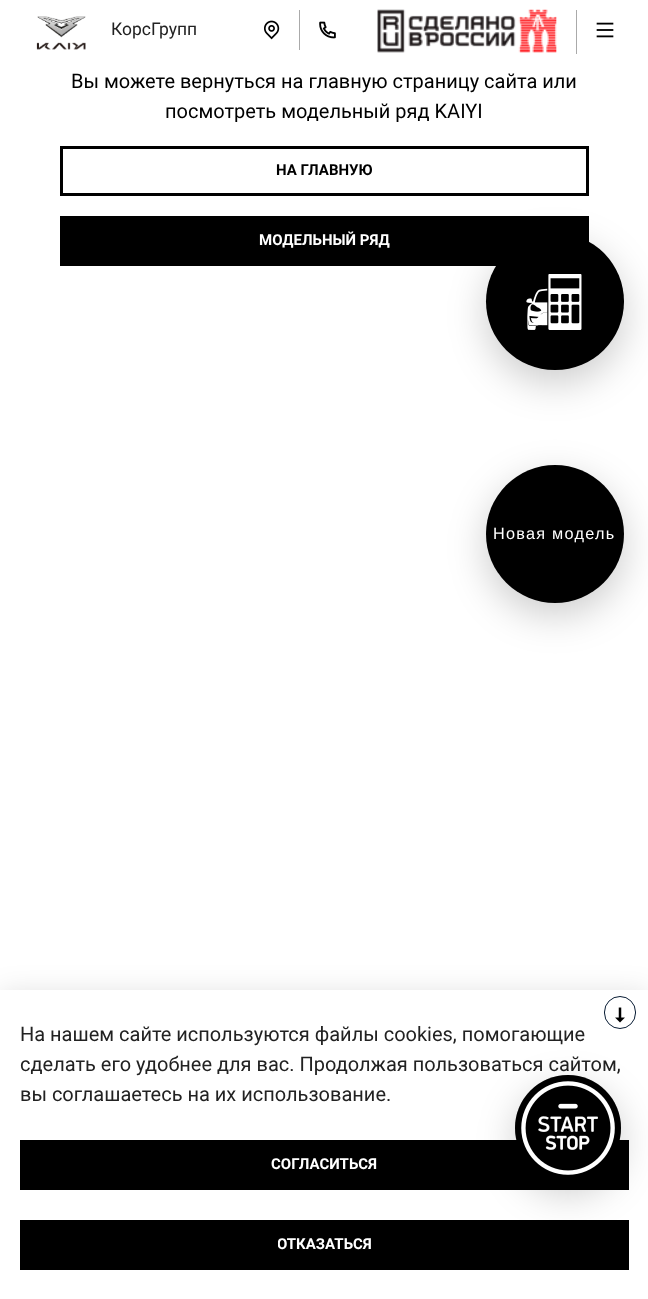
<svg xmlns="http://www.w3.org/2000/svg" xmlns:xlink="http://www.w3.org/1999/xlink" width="648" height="1299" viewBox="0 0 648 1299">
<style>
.cls-1{font:17.5px Roboto;fill:#222222}
.cls-2{font:20px Roboto;fill:#000000}
.cls-3{font:bold 15px Roboto;fill:#000000}
.cls-4{font:bold 15px Roboto;fill:#ffffff}
.cls-5{font:16.25px Liberation Sans;letter-spacing:1.25px;fill:#ffffff}
.cls-6{font:20px Roboto;fill:#222222}
</style>
<defs>
<clipPath id="clip1"><rect x="278" y="1235" width="93" height="20"/></clipPath>
</defs>
<rect width="100%" height="100%" fill="#ffffff"/>
<image xlink:href="image0.png" x="36" y="16" width="50" height="34"/>
<rect fill="#aaaaaa" x="299" y="10" width="1" height="40"/>
<image xlink:href="image1.png" x="264" y="20" width="16" height="20"/>
<image xlink:href="image2.png" x="319" y="21" width="17" height="18"/>
<image xlink:href="image3.png" x="377" y="9" width="180" height="44"/>
<rect fill="#aaaaaa" x="576" y="10" width="1" height="44"/>
<image xlink:href="image4.png" x="596" y="22" width="18" height="16"/>
<rect fill="none" stroke="#000000" stroke-width="3" x="61.5" y="147.5" width="526" height="47"/>
<rect fill="#000000" x="60" y="216" width="529" height="50"/>
<rect fill="#000000" fill-opacity="0.2" filter="blur(19px)" x="486" y="245" width="138" height="138" rx="69"/>
<rect fill="#000000" x="486" y="233" width="138" height="137" rx="68.5"/>
<image xlink:href="image5.png" x="526" y="274" width="56" height="56"/>
<rect fill="#000000" fill-opacity="0.2" filter="blur(19px)" x="486" y="478" width="138" height="137" rx="68.5"/>
<circle fill="#000000" cx="555" cy="534" r="69"/>
<rect fill="#000000" fill-opacity="0.14" filter="blur(15px)" x="0" y="995" width="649" height="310"/>
<rect fill="#ffffff" x="0" y="990" width="648" height="309"/>
<rect fill="none" stroke="#081c34" x="604.5" y="996.5" width="31" height="32" rx="15.5"/>
<image xlink:href="image6.png" x="615" y="1007" width="10" height="16"/>
<rect fill="#000000" x="20" y="1140" width="609" height="50"/>
<rect fill="#000000" x="20" y="1220" width="609" height="50"/>
<text class="cls-1" x="111" y="35">КорсГрупп</text>
<text class="cls-2" x="71" y="88">Вы можете вернуться на главную страницу сайта или</text>
<text class="cls-2" x="165" y="118">посмотреть модельный ряд KAIYI</text>
<text class="cls-3" x="276" y="175">НА ГЛАВНУЮ</text>
<text class="cls-4" x="259" y="245">МОДЕЛЬНЫЙ РЯД</text>
<text class="cls-5" x="493" y="539">Новая модель</text>
<text class="cls-6"><tspan x="20" y="1041">На нашем сайте используются файлы cookies, помогающие</tspan><tspan x="20" y="1071">сделать его удобнее для вас. Продолжая пользоваться сайтом,</tspan><tspan x="20" y="1101">вы соглашаетесь на их использование.</tspan></text>
<text class="cls-4" x="271" y="1169">СОГЛАСИТЬСЯ</text>
<g clip-path="url(#clip1)">
<text class="cls-4" x="277" y="1249">ОТКАЗАТЬСЯ</text>
</g>
<circle fill="none" stroke="#000000" stroke-opacity="0.3" stroke-width="4" cx="568" cy="1128" r="51"/>
<rect fill="#000000" fill-opacity="0.2" filter="blur(19px)" x="515" y="1088" width="106" height="106" rx="53"/>
<circle fill="#000000" cx="568" cy="1128" r="53"/>
<image xlink:href="image7.png" x="521" y="1081" width="94" height="94"/>
</svg>
